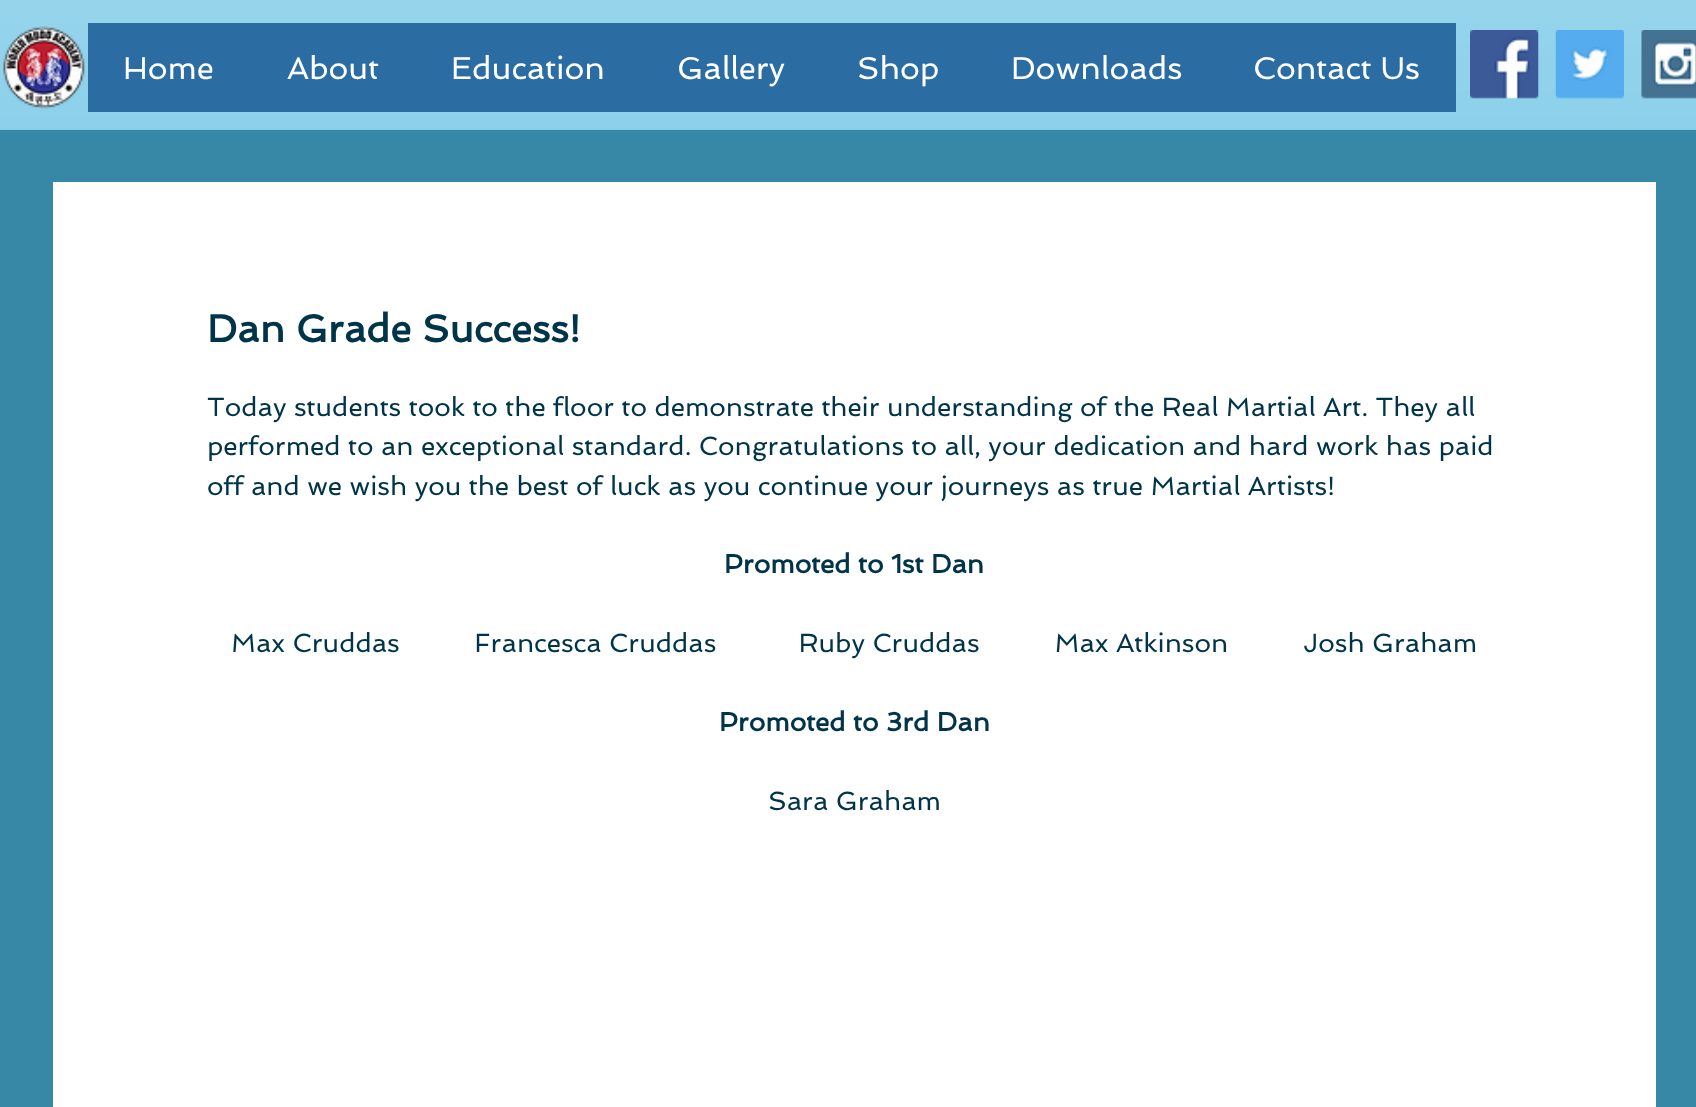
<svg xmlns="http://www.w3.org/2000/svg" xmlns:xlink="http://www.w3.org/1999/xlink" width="1696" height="1107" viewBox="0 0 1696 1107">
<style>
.cls-1{font:31.5px Spinnaker;fill:#ffffff}
.cls-2{font:bold 38.5px Spinnaker;fill:#003448}
.cls-3{font:26.25px Spinnaker;fill:#003448}
.cls-4{font:bold 26.25px Spinnaker;fill:#003448}
</style>
<rect width="100%" height="100%" fill="#3788a6"/>
<rect fill="#72c6e5" x="0" y="0" width="1696" height="130"/>
<image xlink:href="image0.png" x="0" y="0" width="1696" height="130"/>
<image xlink:href="image1.png" x="3" y="26" width="82" height="83"/>
<rect fill="#2b6ca3" x="88" y="23" width="1368" height="89"/>
<image xlink:href="image2.png" x="1470" y="30" width="69" height="69"/>
<image xlink:href="image3.png" x="1555" y="30" width="69" height="69"/>
<image xlink:href="image4.png" x="1641" y="30" width="55" height="69"/>
<rect fill="#ffffff" x="53" y="182" width="1603" height="925"/>
<text class="cls-1" x="123" y="79">Home</text>
<text class="cls-1" x="287" y="79">About</text>
<text class="cls-1" x="451" y="79">Education</text>
<text class="cls-1" x="677" y="79">Gallery</text>
<text class="cls-1" x="857" y="79">Shop</text>
<text class="cls-1" x="1011" y="79">Downloads</text>
<text class="cls-1" x="1253" y="79">Contact Us</text>
<text class="cls-2" x="207" y="342">Dan Grade Success!</text>
<text class="cls-3"><tspan x="207" y="416">Today students took to the floor to demonstrate their understanding of the Real Martial Art. They all</tspan><tspan x="207" y="455">performed to an exceptional standard. Congratulations to all, your dedication and hard work has paid</tspan><tspan x="207" y="495">off and we wish you the best of luck as you continue your journeys as true Martial Artists!</tspan></text>
<text class="cls-4" x="724" y="573">Promoted to 1st Dan</text>
<text class="cls-3" xml:space="preserve" x="231" y="652">Max Cruddas          Francesca Cruddas           Ruby Cruddas          Max Atkinson          Josh Graham</text>
<text class="cls-4" x="719" y="731">Promoted to 3rd Dan</text>
<text class="cls-3" x="768" y="810">Sara Graham</text>
</svg>
